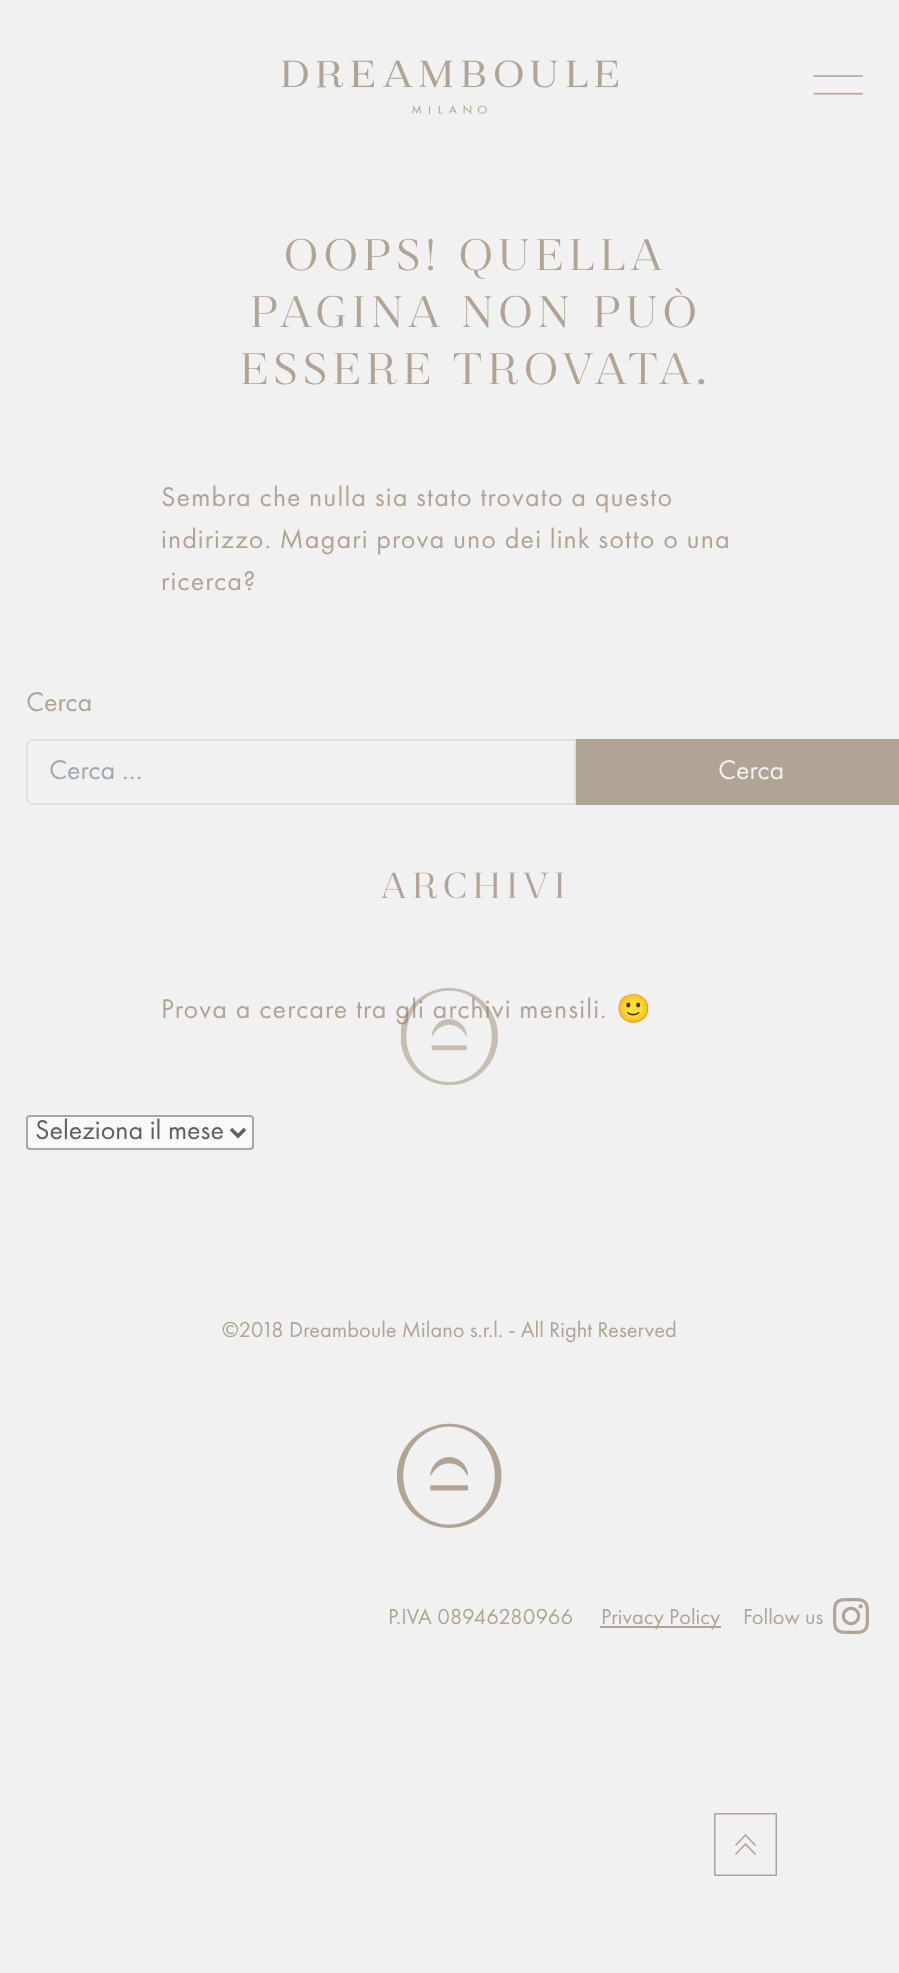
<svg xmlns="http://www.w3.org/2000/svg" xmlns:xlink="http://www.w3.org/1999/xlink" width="899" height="1973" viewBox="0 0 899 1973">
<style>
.cls-1{font:47.5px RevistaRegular;letter-spacing:5.6px;fill:#b1a495}
.cls-2{font:28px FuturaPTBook;letter-spacing:1.1px;fill:#b1a495}
.cls-3{font:28px FuturaPTBook;fill:#b1a495}
.cls-4{font:28px FuturaPTBook;fill:#a1a7ab}
.cls-5{font:28px FuturaPTBook;fill:#f1f1f1}
.cls-6{font:39px RevistaRegular;letter-spacing:5.6px;fill:#b1a495}
.cls-7{font:28px Noto Color Emoji;letter-spacing:1.1px;fill:#b1a495}
.cls-8{font:28px FuturaPTBook;fill:#606060}
.cls-9{font:22.4px FuturaPTBook;fill:#b1a495}
</style>
<rect width="100%" height="100%" fill="#f1f1f1"/>
<image xlink:href="image0.png" x="282" y="60" width="336" height="54"/>
<image xlink:href="image1.png" x="813" y="74" width="51" height="21"/>
<path fill="none" stroke="#dce0e3" stroke-width="2" d="M33 740H575V804H33C29.5 804 27 801.5 27 798V746C27 742.5 29.5 740 33 740Z"/>
<rect fill="#b1a495" x="576" y="739" width="323" height="66"/>
<rect fill="#f9f9f9" stroke="#a7a7a7" stroke-width="2" x="27" y="1116" width="226" height="33" rx="3"/>
<path fill="none" stroke="#606060" stroke-width="3.5" d="M231 1129L238 1136L245 1129"/>
<rect fill="none" stroke="#b1a495" stroke-width="1.5" x="714.75" y="1813.75" width="61.5" height="61.5"/>
<path fill="none" stroke="#b1a495" stroke-width="1.6" d="M755.5 1845.5L745 1834.5M746 1834.5L735.5 1845.5M755.5 1854.5L745 1843.5M746 1843.5L735.5 1854.5"/>
<image xlink:href="image3.png" x="397" y="1423" width="105" height="105"/>
<rect fill="#b1a495" x="600" y="1626" width="121" height="2"/>
<image xlink:href="image4.png" x="833" y="1598" width="36" height="36"/>
<text class="cls-1" x="284" y="270">OOPS! QUELLA</text>
<text class="cls-1" x="250" y="327">PAGINA NON PUÒ</text>
<text class="cls-1" x="240" y="384">ESSERE TROVATA.</text>
<text class="cls-2"><tspan x="161" y="506">Sembra che nulla sia stato trovato a questo</tspan><tspan x="161" y="548">indirizzo. Magari prova uno dei link sotto o una</tspan><tspan x="161" y="590">ricerca?</tspan></text>
<text class="cls-3" x="26" y="711">Cerca</text>
<text class="cls-4" x="49" y="779">Cerca …</text>
<text class="cls-5" x="718" y="779">Cerca</text>
<text class="cls-6" x="381" y="898">ARCHIVI</text>
<text class="cls-2" x="161" y="1018">Prova a cercare tra gli archivi mensili.</text>
<text class="cls-7" x="616" y="1018">🙂</text>
<text class="cls-8" x="35" y="1139">Seleziona il mese</text>
<image xlink:href="image2.png" x="401" y="987" width="97" height="98"/>
<text class="cls-9" x="222" y="1337">©2018 Dreamboule Milano s.r.l. - All Right Reserved</text>
<text class="cls-9" x="388" y="1624">P.IVA 08946280966</text>
<text class="cls-9" x="601" y="1624">Privacy Policy</text>
<text class="cls-9" x="743" y="1624">Follow us</text>
</svg>
